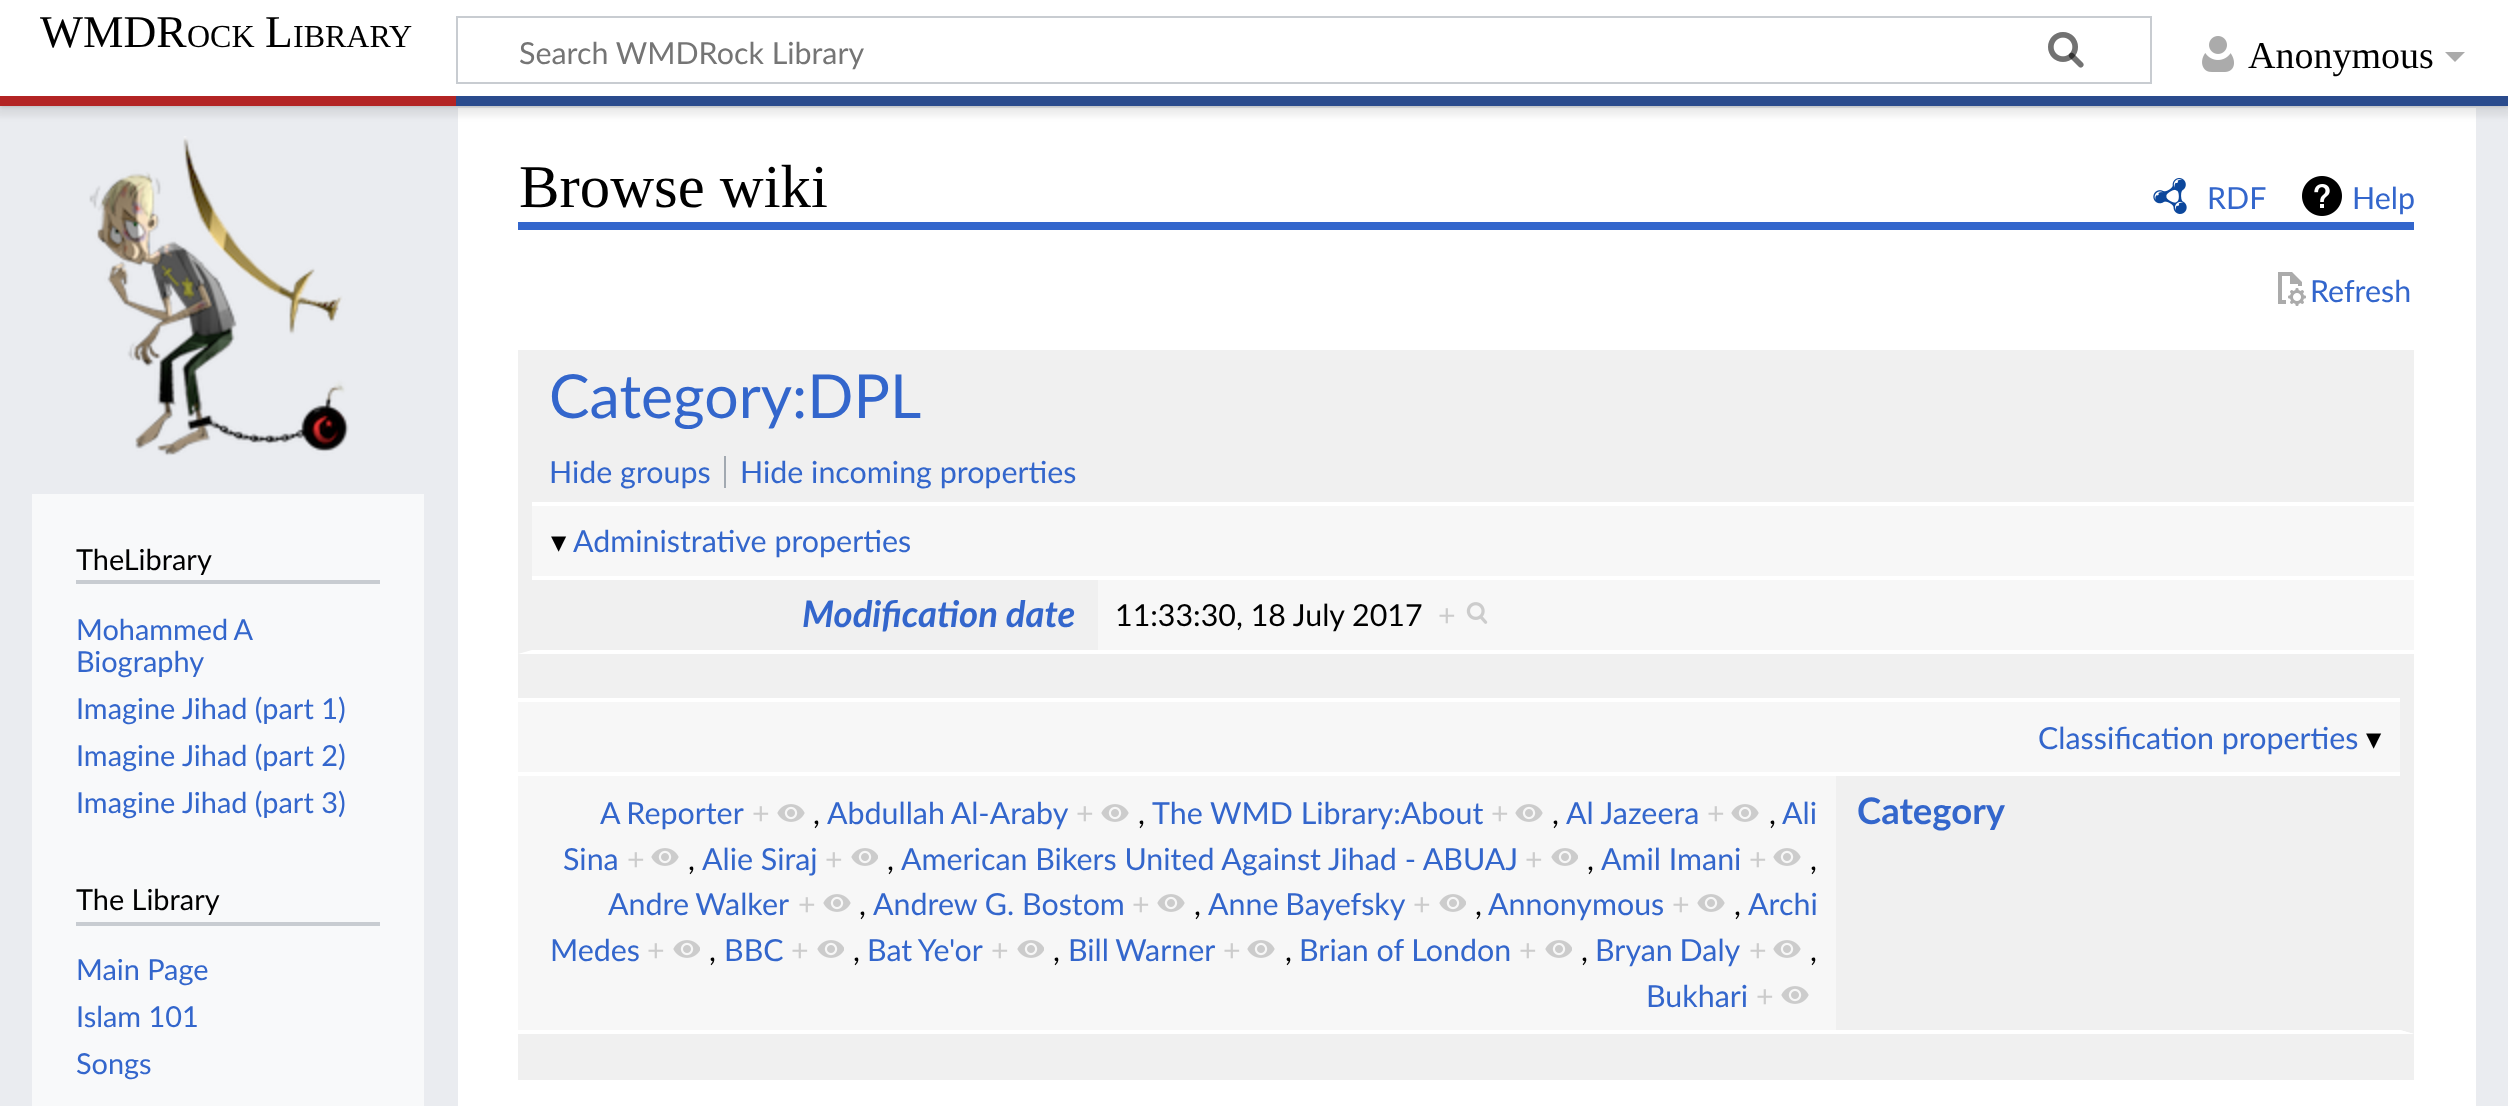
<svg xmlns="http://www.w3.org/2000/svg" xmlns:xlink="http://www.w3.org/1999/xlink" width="2508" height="1106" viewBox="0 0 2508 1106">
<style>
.cls-1{font:45.5px Liberation Serif;fill:#000000}
.cls-2{font:32px Liberation Serif;fill:#000000}
.cls-3{font:30.4px Lato;fill:#757575}
.cls-4{font:38px Liberation Serif;fill:#000000}
.cls-5{font:28.9px Lato;fill:#000000}
.cls-6{font:28.9px Lato;fill:#3366cc}
.cls-7{font:60.75px Liberation Serif;fill:#000000}
.cls-8{font:30.4px Lato;fill:#3366cc}
.cls-9{font:60.75px Lato;fill:#3366cc}
.cls-10{font:30.4px DejaVu Sans;fill:#000000}
.cls-11{font:italic bold 36.5px Lato;fill:#3366cc}
.cls-12{font:30.4px Lato;fill:#000000}
.cls-13{font:30.4px Lato;fill:#cccccc}
.cls-14{font:bold 36.5px Lato;fill:#3366cc}
</style>
<rect width="100%" height="100%" fill="#eaecf0"/>
<rect fill="#ffffff" x="458" y="108" width="2018" height="998"/>
<rect fill="#000000" fill-opacity="0.2" filter="blur(2px)" x="0" y="96" width="2508" height="10"/>
<rect fill="#000000" fill-opacity="0.07" filter="blur(3px)" x="-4" y="98" width="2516" height="18"/>
<rect fill="#ffffff" x="0" y="0" width="2508" height="96"/>
<rect fill="none" stroke="#c8ccd1" stroke-width="2" x="457" y="17" width="1694" height="66"/>
<image xlink:href="image0.png" x="2048" y="32" width="36" height="36"/>
<image xlink:href="image1.png" x="2048" y="32" width="36" height="36"/>
<image xlink:href="image2.png" x="2202" y="36" width="32" height="36"/>
<path fill="#ababab" d="M2465 52L2455 62L2445 52Z"/>
<rect fill="#b32424" x="0" y="96" width="456" height="10"/>
<rect fill="#2a4b8d" x="456" y="96" width="2052" height="10"/>
<image xlink:href="image3.png" x="89" y="136" width="260" height="320"/>
<rect fill="#f8f9fa" x="32" y="494" width="392" height="612"/>
<rect fill="#c8ccd1" x="76" y="580" width="304" height="4"/>
<rect fill="#c8ccd1" x="76" y="922" width="304" height="4"/>
<rect fill="#3366cc" x="518" y="222" width="1896" height="8"/>
<image xlink:href="image4.png" x="2153" y="178" width="34" height="36"/>
<image xlink:href="image5.png" x="2302" y="176" width="40" height="40"/>
<image xlink:href="image6.png" x="2278" y="272" width="28" height="34"/>
<rect fill="#f0f0f0" x="518" y="350" width="1896" height="90"/>
<rect fill="#f0f0f0" x="518" y="440" width="1896" height="62"/>
<rect fill="#a2a9b1" x="724" y="456" width="2" height="32"/>
<rect fill="#f0f0f0" x="518" y="502" width="14" height="74"/>
<rect fill="#f7f7f7" x="532" y="506" width="1882" height="70"/>
<path fill="#f0f0f0" d="M518 654V576H532V650Z"/>
<rect fill="#f0f0f0" x="532" y="580" width="566" height="70"/>
<rect fill="#f7f7f7" x="1098" y="580" width="1316" height="70"/>
<image xlink:href="image7.png" x="1466" y="602" width="22" height="22"/>
<rect fill="#f0f0f0" x="518" y="654" width="1896" height="44"/>
<rect fill="#f0f0f0" x="2400" y="698" width="14" height="74"/>
<rect fill="#f7f7f7" x="518" y="702" width="1882" height="70"/>
<path fill="#f0f0f0" d="M2414 772V1034L2400 1030V772Z"/>
<path fill="#ffffff" d="M2414 1034H518V1030H2400Z"/>
<rect fill="#f7f7f7" x="518" y="776" width="1318" height="254"/>
<image xlink:href="image8.png" x="777" y="804" width="28" height="18"/>
<image xlink:href="image8.png" x="1101" y="804" width="28" height="18"/>
<image xlink:href="image8.png" x="1515" y="804" width="28" height="18"/>
<image xlink:href="image8.png" x="1731" y="804" width="28" height="18"/>
<image xlink:href="image8.png" x="651" y="848" width="28" height="18"/>
<image xlink:href="image9.png" x="851" y="848" width="27" height="18"/>
<image xlink:href="image9.png" x="1551" y="848" width="27" height="18"/>
<image xlink:href="image8.png" x="1773" y="848" width="28" height="18"/>
<image xlink:href="image8.png" x="823" y="894" width="28" height="18"/>
<image xlink:href="image8.png" x="1157" y="894" width="28" height="18"/>
<image xlink:href="image9.png" x="1439" y="894" width="27" height="18"/>
<image xlink:href="image8.png" x="1697" y="894" width="28" height="18"/>
<image xlink:href="image9.png" x="673" y="940" width="27" height="18"/>
<image xlink:href="image9.png" x="817" y="940" width="27" height="18"/>
<image xlink:href="image9.png" x="1017" y="940" width="27" height="18"/>
<image xlink:href="image8.png" x="1247" y="940" width="28" height="18"/>
<image xlink:href="image9.png" x="1545" y="940" width="27" height="18"/>
<image xlink:href="image8.png" x="1773" y="940" width="28" height="18"/>
<image xlink:href="image8.png" x="1781" y="986" width="28" height="18"/>
<rect fill="#f0f0f0" x="1836" y="776" width="564" height="254"/>
<rect fill="#f0f0f0" x="518" y="1034" width="1896" height="46"/>
<text class="cls-1" x="40" y="47">WMDR</text>
<text class="cls-2" x="187" y="47">OCK</text>
<text class="cls-1" x="265" y="47">L</text>
<text class="cls-2" x="293" y="47">IBRARY</text>
<text class="cls-3" x="519" y="64">Search WMDRock Library</text>
<text class="cls-4" x="2248" y="68">Anonymous</text>
<text class="cls-5" x="76" y="570">TheLibrary</text>
<text class="cls-6"><tspan x="76" y="640" word-spacing="-1">Mohammed A</tspan><tspan x="76" y="672">Biography</tspan><tspan x="76" y="719">Imagine Jihad (part 1)</tspan><tspan x="76" y="766">Imagine Jihad (part 2)</tspan><tspan x="76" y="813">Imagine Jihad (part 3)</tspan></text>
<text class="cls-5" x="76" y="910">The Library</text>
<text class="cls-6"><tspan x="76" y="980">Main Page</tspan><tspan x="76" y="1027">Islam 101</tspan><tspan x="76" y="1074">Songs</tspan></text>
<text class="cls-7" x="519" y="207">Browse wiki</text>
<text class="cls-8" x="2207" y="209">RDF</text>
<text class="cls-8" x="2352" y="209">Help</text>
<text class="cls-8" x="2310" y="302">Refresh</text>
<text class="cls-9" x="549" y="418">Category:DPL</text>
<text class="cls-8" x="549" y="483">Hide groups</text>
<text class="cls-8" x="740" y="483">Hide incoming properties</text>
<text class="cls-10" x="551" y="552">▾</text>
<text class="cls-8" x="573" y="552">Administrative properties</text>
<text class="cls-11" x="802" y="627">Modification date</text>
<text class="cls-12" x="1115" y="626">11:33:30, 18 July 2017</text>
<text class="cls-13" x="1438" y="626">+</text>
<text class="cls-8" x="2038" y="749">Classification properties</text>
<text class="cls-10" x="2366" y="749">▾</text>
<text class="cls-8" x="600" y="824" word-spacing="-1">A Reporter</text>
<text class="cls-13" x="752" y="824">+</text>
<text class="cls-8" x="827" y="824" word-spacing="-1">Abdullah Al-Araby</text>
<text class="cls-13" x="1076" y="824">+</text>
<text class="cls-8" x="1152" y="824">The WMD Library:About</text>
<text class="cls-13" x="1491" y="824">+</text>
<text class="cls-8" x="1566" y="824">Al Jazeera</text>
<text class="cls-13" x="1707" y="824">+</text>
<text class="cls-8" x="1782" y="824">Ali</text>
<text class="cls-12" x="813" y="824">,</text>
<text class="cls-12" x="1138" y="824">,</text>
<text class="cls-12" x="1552" y="824">,</text>
<text class="cls-12" x="1769" y="824">,</text>
<text class="cls-8" x="563" y="870">Sina</text>
<text class="cls-13" x="627" y="870">+</text>
<text class="cls-8" x="702" y="870">Alie Siraj</text>
<text class="cls-13" x="825" y="870">+</text>
<text class="cls-8" x="901" y="870">American Bikers United Against Jihad - ABUAJ</text>
<text class="cls-13" x="1525" y="870">+</text>
<text class="cls-8" x="1601" y="870">Amil Imani</text>
<text class="cls-13" x="1749" y="870">+</text>
<text class="cls-12" x="688" y="870">,</text>
<text class="cls-12" x="887" y="870">,</text>
<text class="cls-12" x="1587" y="870">,</text>
<text class="cls-12" x="1810" y="870">,</text>
<text class="cls-8" x="608" y="915" word-spacing="-1">Andre Walker</text>
<text class="cls-13" x="798" y="915">+</text>
<text class="cls-8" x="873" y="915">Andrew G. Bostom</text>
<text class="cls-13" x="1132" y="915">+</text>
<text class="cls-8" x="1208" y="915" word-spacing="-1">Anne Bayefsky</text>
<text class="cls-13" x="1413" y="915">+</text>
<text class="cls-8" x="1488" y="915">Annonymous</text>
<text class="cls-13" x="1672" y="915">+</text>
<text class="cls-8" x="1748" y="915">Archi</text>
<text class="cls-12" x="859" y="915">,</text>
<text class="cls-12" x="1194" y="915">,</text>
<text class="cls-12" x="1475" y="915">,</text>
<text class="cls-12" x="1734" y="915">,</text>
<text class="cls-8" x="550" y="961">Medes</text>
<text class="cls-13" x="647" y="961">+</text>
<text class="cls-8" x="724" y="961">BBC</text>
<text class="cls-13" x="791" y="961">+</text>
<text class="cls-8" x="867" y="961" word-spacing="-1">Bat Ye'or</text>
<text class="cls-13" x="991" y="961">+</text>
<text class="cls-8" x="1068" y="961" word-spacing="-1">Bill Warner</text>
<text class="cls-13" x="1223" y="961">+</text>
<text class="cls-8" x="1299" y="961">Brian of London</text>
<text class="cls-13" x="1519" y="961">+</text>
<text class="cls-8" x="1595" y="961" word-spacing="-1">Bryan Daly</text>
<text class="cls-13" x="1749" y="961">+</text>
<text class="cls-12" x="709" y="961">,</text>
<text class="cls-12" x="853" y="961">,</text>
<text class="cls-12" x="1053" y="961">,</text>
<text class="cls-12" x="1285" y="961">,</text>
<text class="cls-12" x="1581" y="961">,</text>
<text class="cls-12" x="1810" y="961">,</text>
<text class="cls-8" x="1646" y="1007">Bukhari</text>
<text class="cls-13" x="1756" y="1007">+</text>
<text class="cls-14" x="1857" y="824">Category</text>
</svg>
